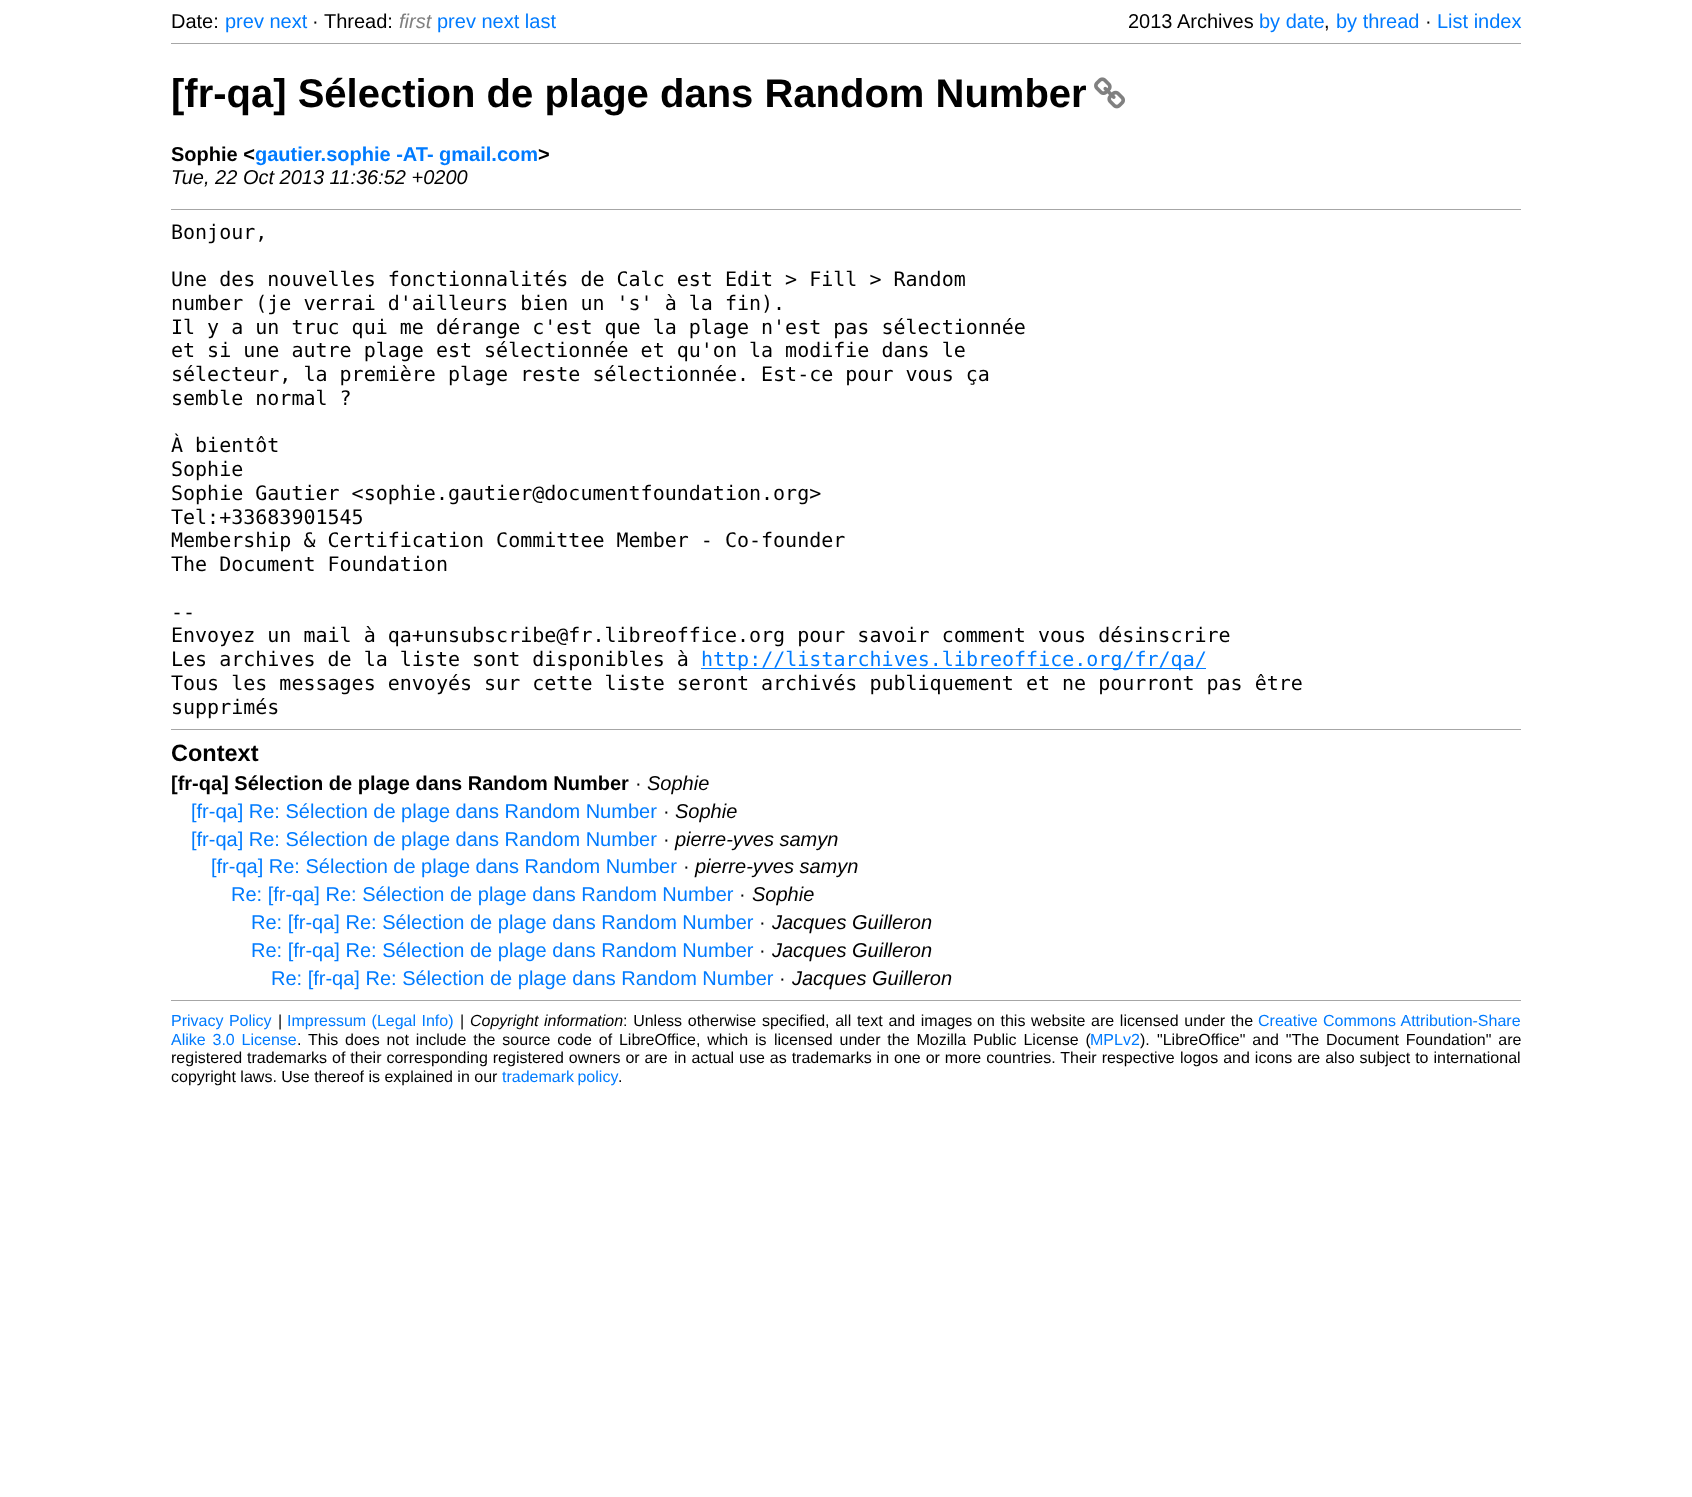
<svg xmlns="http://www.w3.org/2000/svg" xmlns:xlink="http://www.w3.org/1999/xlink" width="1692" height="1497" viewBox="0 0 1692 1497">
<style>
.cls-1{font:20px Liberation Sans;fill:#000000}
.cls-2{font:20px Liberation Sans;fill:#007bff}
.cls-3{font:italic 20px Liberation Sans;fill:#808080}
.cls-4{font:bold 40px Liberation Sans;fill:#000000}
.cls-5{font:bold 20px Liberation Sans;fill:#000000}
.cls-6{font:bold 20px Liberation Sans;fill:#007bff}
.cls-7{font:italic 20px Liberation Sans;fill:#000000}
.cls-8{font:20px DejaVu Sans Mono;fill:#000000}
.cls-9{font:20px DejaVu Sans Mono;fill:#007bff}
.cls-10{font:bold 23.5px Liberation Sans;fill:#000000}
.cls-11{font:16px Liberation Sans;fill:#007bff}
.cls-12{font:16px Liberation Sans;fill:#000000}
.cls-13{font:italic 16px Liberation Sans;fill:#000000}
</style>
<rect width="100%" height="100%" fill="#ffffff"/>
<rect fill="#a6a6a6" x="171" y="43" width="1350" height="1"/>
<image xlink:href="image0.png" x="1094" y="77" width="31" height="32"/>
<rect fill="#a6a6a6" x="171" y="209" width="1350" height="1"/>
<rect fill="#007bff" x="701" y="668" width="505" height="1"/>
<rect fill="#a6a6a6" x="171" y="729" width="1350" height="1"/>
<rect fill="#a6a6a6" x="171" y="1000" width="1350" height="1"/>
<text class="cls-1" x="171" y="28">Date:</text>
<text class="cls-2" x="225" y="28">prev next</text>
<text class="cls-1" x="312" y="28">·</text>
<text class="cls-1" x="324" y="28">Thread:</text>
<text class="cls-3" x="399" y="28">first</text>
<text class="cls-2" x="437" y="28">prev next last</text>
<text class="cls-1" x="1128" y="28">2013 Archives</text>
<text class="cls-2" x="1259" y="28">by date</text>
<text class="cls-2" x="1336" y="28">by thread</text>
<text class="cls-1" x="1425" y="28">·</text>
<text class="cls-2" x="1437" y="28">List index</text>
<text class="cls-1" x="1324" y="28">,</text>
<text class="cls-4" x="171" y="107">[fr-qa] Sélection de plage dans Random Number</text>
<text class="cls-5" x="171" y="161">Sophie &lt;</text>
<text class="cls-6" x="255" y="161">gautier.sophie -AT- gmail.com</text>
<text class="cls-5" x="538" y="161">&gt;</text>
<text class="cls-7" x="171" y="184">Tue, 22 Oct 2013 11:36:52 +0200</text>
<text class="cls-8" x="171" y="239">Bonjour,</text>
<text class="cls-8"><tspan x="171" y="286">Une des nouvelles fonctionnalités de Calc est Edit &gt; Fill &gt; Random</tspan><tspan x="171" y="310">number (je verrai d'ailleurs bien un 's' à la fin).</tspan><tspan x="171" y="334">Il y a un truc qui me dérange c'est que la plage n'est pas sélectionnée</tspan><tspan x="171" y="357">et si une autre plage est sélectionnée et qu'on la modifie dans le</tspan><tspan x="171" y="381">sélecteur, la première plage reste sélectionnée. Est-ce pour vous ça</tspan><tspan x="171" y="405">semble normal ?</tspan></text>
<text class="cls-8"><tspan x="171" y="452">À bientôt</tspan><tspan x="171" y="476">Sophie</tspan><tspan x="171" y="500">Sophie Gautier &lt;sophie.gautier@documentfoundation.org&gt;</tspan><tspan x="171" y="524">Tel:+33683901545</tspan><tspan x="171" y="547">Membership &amp; Certification Committee Member - Co-founder</tspan><tspan x="171" y="571">The Document Foundation</tspan></text>
<text class="cls-8"><tspan x="171" y="619">--</tspan><tspan x="171" y="642">Envoyez un mail à qa+unsubscribe@fr.libreoffice.org pour savoir comment vous désinscrire</tspan><tspan x="171" y="666">Les archives de la liste sont disponibles à</tspan></text>
<text class="cls-9" x="701" y="666">http://listarchives.libreoffice.org/fr/qa/</text>
<text class="cls-8"><tspan x="171" y="690">Tous les messages envoyés sur cette liste seront archivés publiquement et ne pourront pas être</tspan><tspan x="171" y="714">supprimés</tspan></text>
<text class="cls-10" x="171" y="761">Context</text>
<text class="cls-5" x="171" y="790">[fr-qa] Sélection de plage dans Random Number</text>
<text class="cls-1" x="635" y="790">·</text>
<text class="cls-7" x="647" y="790">Sophie</text>
<text class="cls-2" x="191" y="818">[fr-qa] Re: Sélection de plage dans Random Number</text>
<text class="cls-1" x="663" y="818">·</text>
<text class="cls-7" x="675" y="818">Sophie</text>
<text class="cls-2" x="191" y="846">[fr-qa] Re: Sélection de plage dans Random Number</text>
<text class="cls-1" x="663" y="846">·</text>
<text class="cls-7" x="675" y="846">pierre-yves samyn</text>
<text class="cls-2" x="211" y="873">[fr-qa] Re: Sélection de plage dans Random Number</text>
<text class="cls-1" x="683" y="873">·</text>
<text class="cls-7" x="695" y="873">pierre-yves samyn</text>
<text class="cls-2" x="231" y="901">Re: [fr-qa] Re: Sélection de plage dans Random Number</text>
<text class="cls-1" x="739" y="901">·</text>
<text class="cls-7" x="752" y="901">Sophie</text>
<text class="cls-2" x="251" y="929">Re: [fr-qa] Re: Sélection de plage dans Random Number</text>
<text class="cls-1" x="759" y="929">·</text>
<text class="cls-7" x="772" y="929">Jacques Guilleron</text>
<text class="cls-2" x="251" y="957">Re: [fr-qa] Re: Sélection de plage dans Random Number</text>
<text class="cls-1" x="759" y="957">·</text>
<text class="cls-7" x="772" y="957">Jacques Guilleron</text>
<text class="cls-2" x="271" y="985">Re: [fr-qa] Re: Sélection de plage dans Random Number</text>
<text class="cls-1" x="779" y="985">·</text>
<text class="cls-7" x="792" y="985">Jacques Guilleron</text>
<text class="cls-11" x="171" y="1026" word-spacing="1">Privacy Policy</text>
<text class="cls-12" x="278" y="1026">|</text>
<text class="cls-11" x="287" y="1026" word-spacing="1">Impressum (Legal Info)</text>
<text class="cls-12" x="460" y="1026">|</text>
<text class="cls-13" x="470" y="1026" word-spacing="1">Copyright information</text>
<text class="cls-12" x="623" y="1026" word-spacing="1.25">: Unless otherwise specified, all text and images</text>
<text class="cls-12" x="977" y="1026" word-spacing="1.25">on this website are licensed under the</text>
<text class="cls-11" x="1258" y="1026" word-spacing="1">Creative Commons Attribution-Share</text>
<text class="cls-11" x="171" y="1045" word-spacing="2.4">Alike 3.0 License</text>
<text class="cls-12" x="297" y="1045">.</text>
<text class="cls-12" x="308" y="1045" word-spacing="2.4">This does not include the source code of LibreOffice, which is</text>
<text class="cls-12" x="774" y="1045" word-spacing="2.4">licensed under the Mozilla Public License (</text>
<text class="cls-11" x="1090" y="1045">MPLv2</text>
<text class="cls-12" x="1140" y="1045">).</text>
<text class="cls-12" x="1157" y="1045" word-spacing="2.4">"LibreOffice" and "The Document Foundation" are</text>
<text class="cls-12" x="171" y="1063" word-spacing="0.5">registered trademarks of their corresponding registered owners or are</text>
<text class="cls-12" x="674" y="1063" word-spacing="0.5">in actual use as trademarks in one or more countries. Their respective</text>
<text class="cls-12" x="1180" y="1063" word-spacing="0.5">logos and icons are also subject to international</text>
<text class="cls-12" x="171" y="1082">copyright laws. Use thereof is explained in our</text>
<text class="cls-11" x="502" y="1082" word-spacing="-1">trademark policy</text>
<text class="cls-12" x="618" y="1082">.</text>
</svg>
